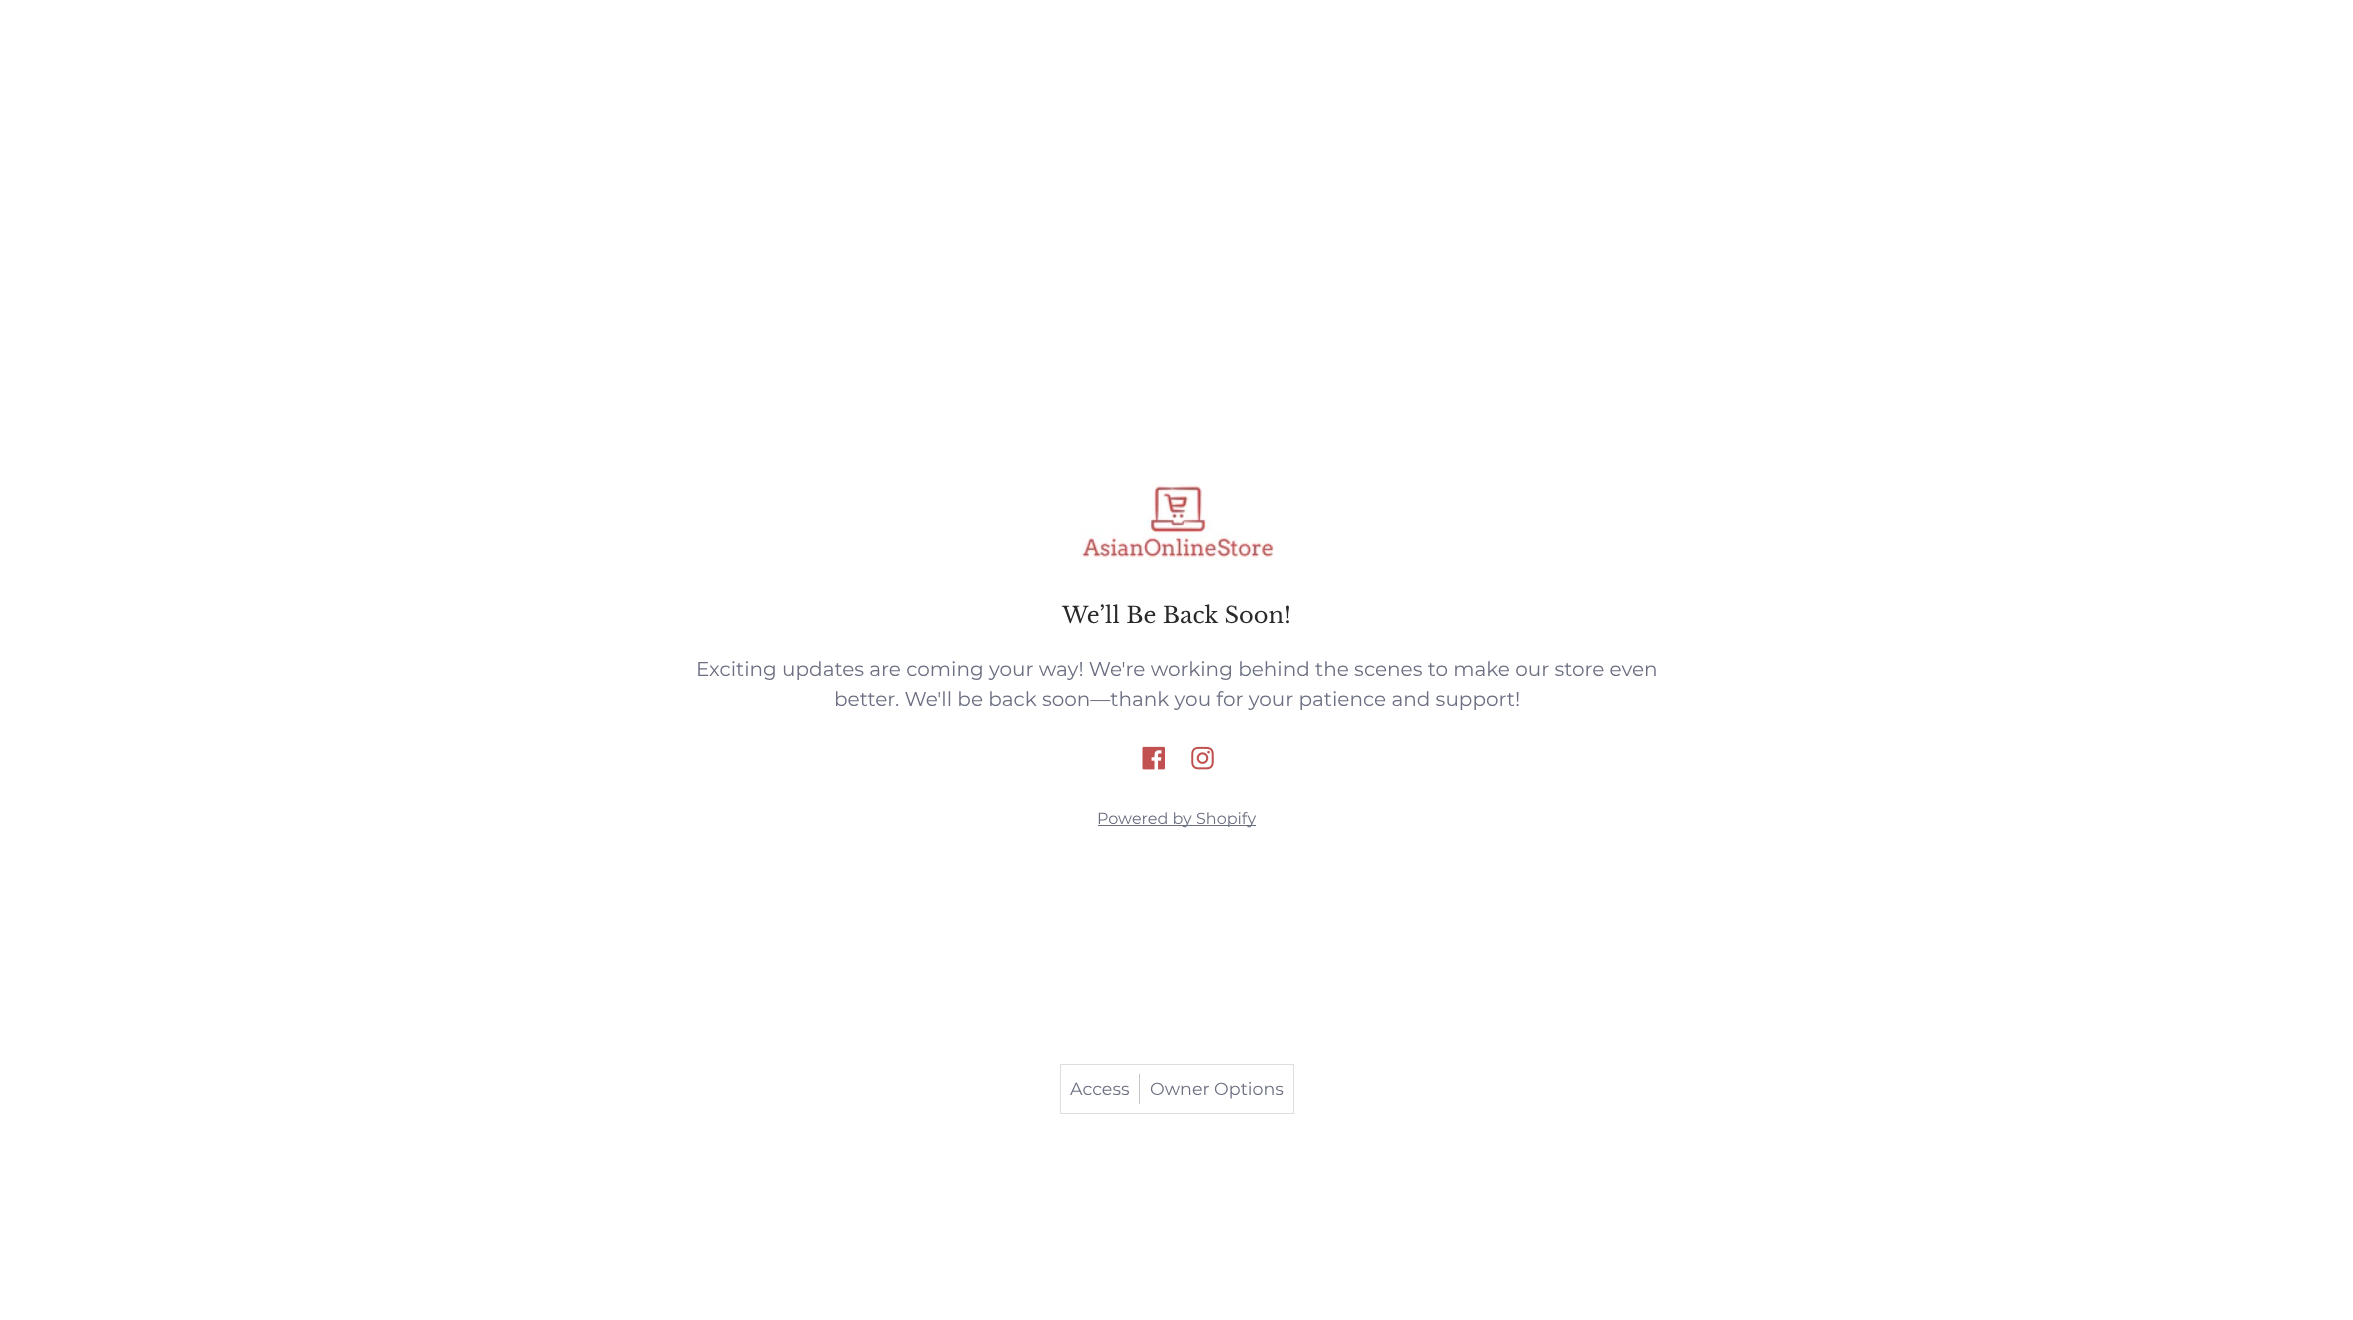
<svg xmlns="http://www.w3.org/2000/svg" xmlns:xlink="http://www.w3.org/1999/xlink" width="2353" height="1320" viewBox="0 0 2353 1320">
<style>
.cls-1{font:22.5px Libre Baskerville;fill:#292929}
.cls-2{font:20px Montserrat;fill:#6b6f81}
.cls-3{font:16px Montserrat;fill:#6b6f81}
.cls-4{font:17.5px Montserrat;fill:#6b6f81}
</style>
<rect width="100%" height="100%" fill="#ffffff"/>
<image xlink:href="image0.png" x="1082" y="484" width="192" height="77"/>
<image xlink:href="image1.png" x="1142" y="746" width="23" height="24"/>
<image xlink:href="image2.png" x="1191" y="746" width="23" height="24"/>
<rect fill="#6b6f81" x="1098" y="825" width="158" height="1"/>
<rect fill="none" stroke="#dedede" x="1060.5" y="1064.5" width="233" height="49"/>
<rect fill="#c5c5c5" x="1139" y="1074" width="1" height="30"/>
<text class="cls-1" x="1062" y="623">We’ll Be Back Soon!</text>
<text class="cls-2" x="696" y="676">Exciting updates are coming your way! We're working behind the scenes to make our store even</text>
<text class="cls-2" x="834" y="706">better. We'll be back soon—thank you for your patience and support!</text>
<text class="cls-3" x="1097" y="824">Powered by Shopify</text>
<text class="cls-4" x="1070" y="1095">Access</text>
<text class="cls-4" x="1150" y="1095">Owner Options</text>
</svg>
